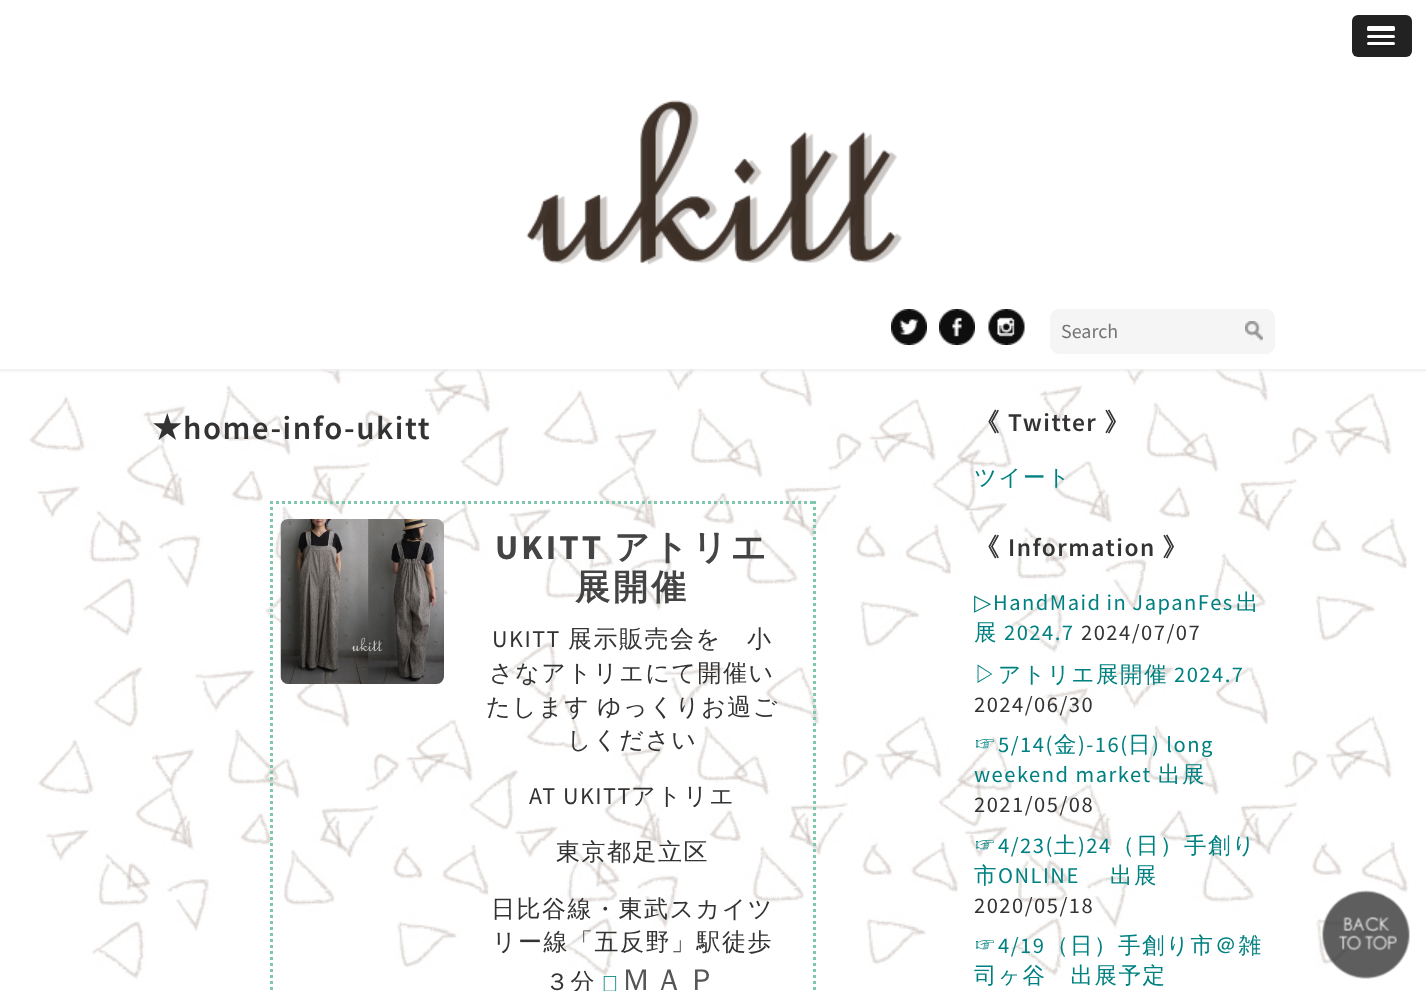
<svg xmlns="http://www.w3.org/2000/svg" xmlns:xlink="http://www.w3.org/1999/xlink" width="1426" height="991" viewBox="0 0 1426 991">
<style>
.cls-1{font:20px Source Sans Pro;fill:#757575}
.cls-2{font:bold 33px DejaVu Sans;letter-spacing:1.5px;fill:#333333}
.cls-3{font:600 33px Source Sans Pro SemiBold;letter-spacing:1.5px;fill:#333333}
.cls-4{font:bold 35px Source Sans Pro;letter-spacing:3px;fill:#444444}
.cls-5{font:bold 35px WenQuanYi Zen Hei;letter-spacing:3px;fill:#444444}
.cls-6{font:24px Source Sans Pro;letter-spacing:1.5px;fill:#333333}
.cls-7{font:500 24px WenQuanYi Zen Hei;letter-spacing:1.5px;fill:#333333}
.cls-8{font:500 30px WenQuanYi Zen Hei;letter-spacing:3px;fill:#555555}
.cls-9{font:bold 25.5px WenQuanYi Zen Hei;letter-spacing:1.5px;fill:#333333}
.cls-10{font:600 25.5px Source Sans Pro SemiBold;letter-spacing:1.5px;fill:#333333}
.cls-11{font:500 22.5px WenQuanYi Zen Hei;letter-spacing:1.5px;fill:#008080}
.cls-12{font:22.5px DejaVu Sans;letter-spacing:1.5px;fill:#008080}
.cls-13{font:22.5px Source Sans Pro;letter-spacing:1.5px;fill:#008080}
.cls-14{font:22.5px Source Sans Pro;letter-spacing:1.5px;fill:#333333}
</style>
<rect width="100%" height="100%" fill="#ffffff"/>
<image xlink:href="image0.png" x="0" y="369" width="1426" height="622"/>
<rect fill="#222222" x="1352" y="15" width="60" height="42" rx="6"/>
<path fill="#1a1a1a" d="M1367 29.5C1367 33 1369.5 32 1372.5 32H1389.5C1394 32 1395 33 1395 28.5C1395 29.5 1394.5 30 1393.5 30H1368Z"/>
<rect fill="#ffffff" x="1367" y="26" width="28" height="5" rx="1.5"/>
<path fill="#1a1a1a" d="M1367 37C1366.5 40 1372 39 1372.5 39H1389.5C1389.5 39 1396.5 40 1395 36.5L1394.5 37C1394 37.5 1368 38 1367 37Z"/>
<rect fill="#ffffff" x="1367" y="35" width="28" height="3" rx="1.5"/>
<path fill="#1a1a1a" d="M1367 45C1365.5 48 1372.5 47 1372.5 47H1389.5C1390 47 1394.5 48 1395 46L1394.5 44.5L1393.5 45C1391.5 45.5 1368 45.5 1367 45Z"/>
<rect fill="#ffffff" x="1367" y="42" width="28" height="3" rx="1.5"/>
<rect fill="#eeeeee" filter="blur(1.5px)" x="-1" y="72" width="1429" height="299"/>
<rect fill="#ffffff" x="0" y="70" width="1426" height="299"/>
<image xlink:href="image1.png" x="526" y="100" width="376" height="165"/>
<image xlink:href="image2.png" x="891" y="309" width="36" height="36"/>
<image xlink:href="image3.png" x="939" y="309" width="36" height="36"/>
<image xlink:href="image4.png" x="988" y="309" width="37" height="36"/>
<rect fill="#f5f5f5" x="1050" y="309" width="225" height="45" rx="9"/>
<image xlink:href="image5.png" x="1245" y="321" width="18" height="20"/>
<path fill="none" stroke="#7fc7ad" stroke-width="3" stroke-dasharray="3 3" d="M270 502.5H816"/>
<path fill="none" stroke="#7fc7ad" stroke-width="3" stroke-dasharray="3 3" d="M814.5 501V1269"/>
<path fill="none" stroke="#7fc7ad" stroke-width="3" stroke-dasharray="3 3" d="M271.5 501V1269"/>
<image xlink:href="image6.png" x="280" y="519" width="164" height="165"/>
<image xlink:href="image7.png" x="603" y="976" width="14" height="15"/>
<image xlink:href="image8.png" x="1322" y="890" width="88" height="89"/>
<text class="cls-1" x="1061" y="338">Search</text>
<text class="cls-2" x="152" y="439">★</text>
<text class="cls-3" x="183" y="439">home-info-ukitt</text>
<text class="cls-4" x="495" y="559">UKITT</text>
<text class="cls-5" x="614" y="559">アトリエ</text>
<text class="cls-5" x="575" y="599">展開催</text>
<text class="cls-6" x="492" y="647">UKITT</text>
<text class="cls-7" x="568" y="647">展示販売会を　小</text>
<text class="cls-7" x="489" y="681">さなアトリエにて開催い</text>
<text class="cls-7" x="486" y="715">たします</text>
<text class="cls-7" x="597" y="715">ゆっくりお過ご</text>
<text class="cls-7" x="567" y="748">しください</text>
<text class="cls-6" x="529" y="804">AT UKITT</text>
<text class="cls-7" x="631" y="804">アトリエ</text>
<text class="cls-7" x="556" y="860">東京都足立区</text>
<text class="cls-7" x="491" y="917">日比谷線・東武スカイツ</text>
<text class="cls-7" x="492" y="950">リー線「五反野」駅徒歩</text>
<text class="cls-7" x="545" y="990">３分</text>
<text class="cls-8" x="621" y="990">ＭＡＰ</text>
<text class="cls-9" x="974" y="431">《</text>
<text class="cls-10" x="1008" y="431">Twitter</text>
<text class="cls-9" x="1104" y="431">》</text>
<text class="cls-11" x="974" y="485">ツイート</text>
<text class="cls-9" x="974" y="556">《</text>
<text class="cls-10" x="1008" y="556">Information</text>
<text class="cls-9" x="1162" y="556">》</text>
<text class="cls-12" x="974" y="610">▷</text>
<text class="cls-13" x="993" y="610" word-spacing="-1">HandMaid in JapanFes</text>
<text class="cls-11" x="1236" y="610">出</text>
<text class="cls-11" x="974" y="640">展</text>
<text class="cls-13" x="1004" y="640">2024.7</text>
<text class="cls-14" x="1081" y="640">2024/07/07</text>
<text class="cls-11" x="974" y="682">▷アトリエ展開催</text>
<text class="cls-13" x="1174" y="682">2024.7</text>
<text class="cls-14" x="974" y="712">2024/06/30</text>
<text class="cls-11" x="974" y="752">☞</text>
<text class="cls-13" x="998" y="752">5/14(</text>
<text class="cls-11" x="1054" y="752">金</text>
<text class="cls-13" x="1078" y="752">)-16(</text>
<text class="cls-11" x="1128" y="752">日</text>
<text class="cls-13" x="1152" y="752">) long</text>
<text class="cls-13" x="974" y="782">weekend market</text>
<text class="cls-11" x="1158" y="782">出展</text>
<text class="cls-14" x="974" y="812">2021/05/08</text>
<text class="cls-11" x="974" y="853">☞</text>
<text class="cls-13" x="998" y="853">4/23(</text>
<text class="cls-11" x="1054" y="853">土</text>
<text class="cls-13" x="1078" y="853">)24</text>
<text class="cls-11" x="1112" y="853">（日）手創り</text>
<text class="cls-11" x="974" y="883">市</text>
<text class="cls-13" x="998" y="883">ONLINE</text>
<text class="cls-11" x="1110" y="883">出展</text>
<text class="cls-14" x="974" y="913">2020/05/18</text>
<text class="cls-11" x="974" y="953">☞</text>
<text class="cls-13" x="998" y="953">4/19</text>
<text class="cls-11" x="1046" y="953">（日）手創り市＠雑</text>
<text class="cls-11" x="974" y="983">司ヶ谷　出展予定</text>
</svg>
